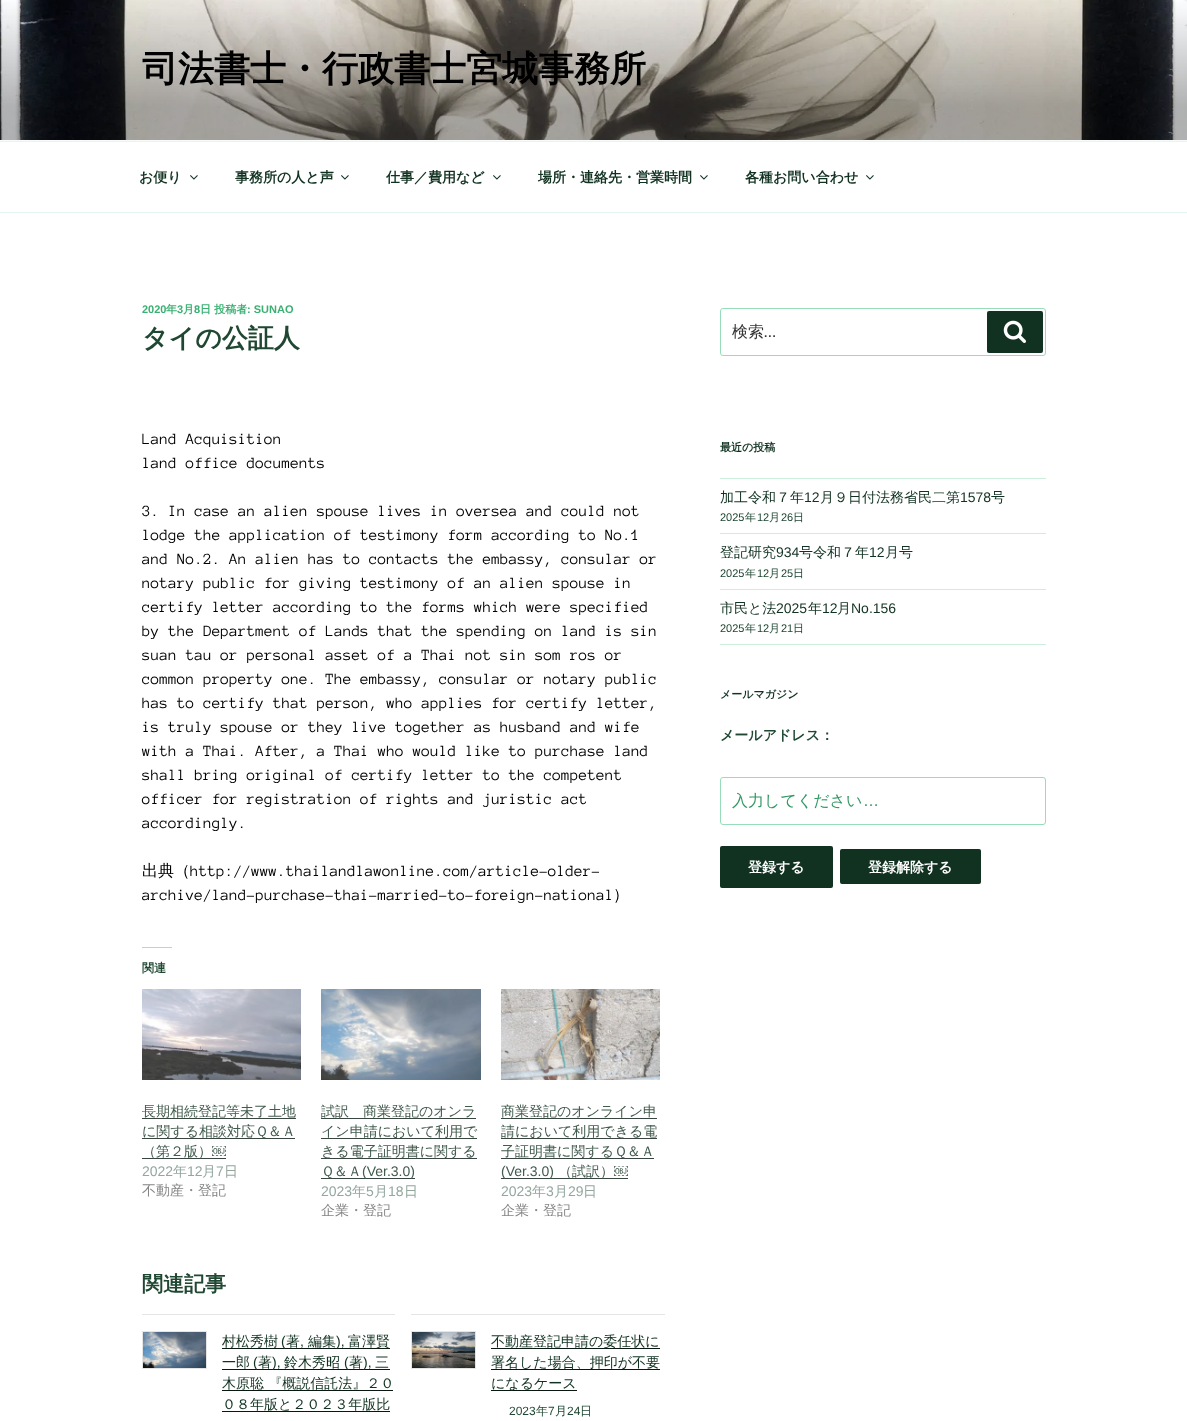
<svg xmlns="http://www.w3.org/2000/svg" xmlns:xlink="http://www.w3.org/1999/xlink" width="1187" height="1421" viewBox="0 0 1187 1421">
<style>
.cls-1{font:bold 36px WenQuanYi Zen Hei;fill:#000000}
.cls-2{font:bold 14px WenQuanYi Zen Hei;fill:#113221}
.cls-3{font:bold 11px Liberation Sans;fill:#3bb073}
.cls-4{font:bold 11px WenQuanYi Zen Hei;fill:#3bb073}
.cls-5{font:bold 26px WenQuanYi Zen Hei;fill:#1f4732}
.cls-6{font:16px Anonymous Pro;fill:#000000}
.cls-7{font:500 16px WenQuanYi Zen Hei;fill:#000000}
.cls-8{font:bold 12px WenQuanYi Zen Hei;fill:#1f4732}
.cls-9{font:500 14px WenQuanYi Zen Hei;fill:#415b4d}
.cls-10{font:14px Liberation Sans;fill:#415b4d}
.cls-11{font:14px Liberation Sans;fill:#93a79d}
.cls-12{font:500 14px WenQuanYi Zen Hei;fill:#93a79d}
.cls-13{font:500 14px WenQuanYi Zen Hei;fill:#858585}
.cls-14{font:bold 21px WenQuanYi Zen Hei;fill:#1f4732}
.cls-15{font:500 14px WenQuanYi Zen Hei;fill:#113221}
.cls-16{font:14px Liberation Sans;fill:#113221}
.cls-17{font:12px Liberation Sans;fill:#1f4732}
.cls-18{font:500 12px WenQuanYi Zen Hei;fill:#1f4732}
.cls-19{font:500 16px WenQuanYi Zen Hei;fill:#333333}
.cls-20{font:16px Libre Franklin;fill:#333333}
.cls-21{font:bold 11px WenQuanYi Zen Hei;fill:#113221}
.cls-22{font:11px Liberation Sans;fill:#1f4732}
.cls-23{font:500 11px WenQuanYi Zen Hei;fill:#1f4732}
.cls-24{font:bold 14px WenQuanYi Zen Hei;fill:#1f4732}
.cls-25{font:500 16px WenQuanYi Zen Hei;fill:#339964}
.cls-26{font:16px Liberation Sans;fill:#339964}
.cls-27{font:bold 14px WenQuanYi Zen Hei;fill:#ffffff}
</style>
<rect width="100%" height="100%" fill="#ffffff"/>
<rect fill="#f7fcfa" x="0" y="140" width="1187" height="1"/>
<image xlink:href="image0.png" x="0" y="0" width="1187" height="140"/>
<rect fill="#e4f6ed" x="0" y="141" width="1187" height="1"/>
<rect fill="#e4f6ed" x="0" y="212" width="1187" height="1"/>
<image xlink:href="image1.png" x="190" y="175" width="8" height="5"/>
<image xlink:href="image1.png" x="341" y="175" width="8" height="5"/>
<image xlink:href="image1.png" x="493" y="175" width="8" height="5"/>
<image xlink:href="image1.png" x="700" y="175" width="8" height="5"/>
<image xlink:href="image1.png" x="866" y="175" width="8" height="5"/>
<rect fill="#cccccc" x="142" y="947" width="30" height="1"/>
<image xlink:href="image2.png" x="142" y="989" width="159" height="91"/>
<rect fill="#39453f" x="142" y="1118" width="154" height="1"/>
<rect fill="#39453f" x="142" y="1138" width="153" height="1"/>
<rect fill="#39453f" x="142" y="1158" width="84" height="1"/>
<image xlink:href="image3.png" x="321" y="989" width="160" height="91"/>
<rect fill="#39453f" x="321" y="1118" width="155" height="1"/>
<rect fill="#39453f" x="321" y="1138" width="156" height="1"/>
<rect fill="#39453f" x="321" y="1158" width="156" height="1"/>
<rect fill="#39453f" x="321" y="1178" width="94" height="1"/>
<image xlink:href="image4.png" x="501" y="989" width="159" height="91"/>
<rect fill="#39453f" x="501" y="1118" width="156" height="1"/>
<rect fill="#39453f" x="501" y="1138" width="156" height="1"/>
<rect fill="#39453f" x="501" y="1158" width="153" height="1"/>
<rect fill="#39453f" x="501" y="1178" width="127" height="1"/>
<rect fill="#e5e5e5" x="142" y="1314" width="253" height="1"/>
<rect fill="none" stroke="#e5e5e5" x="142.5" y="1331.5" width="64" height="37"/>
<image xlink:href="image5.png" x="143" y="1332" width="63" height="36"/>
<rect fill="#08170f" x="222" y="1348" width="168" height="1"/>
<rect fill="#08170f" x="222" y="1369" width="168" height="1"/>
<rect fill="#08170f" x="222" y="1390" width="171" height="1"/>
<rect fill="#08170f" x="222" y="1411" width="168" height="1"/>
<rect fill="#e5e5e5" x="411" y="1314" width="254" height="1"/>
<rect fill="none" stroke="#e5e5e5" x="411.5" y="1331.5" width="64" height="37"/>
<image xlink:href="image6.png" x="412" y="1332" width="63" height="36"/>
<rect fill="#08170f" x="491" y="1348" width="169" height="1"/>
<rect fill="#08170f" x="491" y="1369" width="169" height="1"/>
<rect fill="#08170f" x="491" y="1390" width="86" height="1"/>
<rect fill="none" stroke="#98ddb9" x="720.5" y="308.5" width="325" height="47" rx="2.5"/>
<rect fill="#113221" x="987" y="311" width="56" height="42" rx="2"/>
<image xlink:href="image7.png" x="1003" y="320" width="23" height="23"/>
<rect fill="#cdeedd" x="720" y="478" width="326" height="1"/>
<rect fill="#cdeedd" x="720" y="533" width="326" height="1"/>
<rect fill="#cdeedd" x="720" y="589" width="326" height="1"/>
<rect fill="#cdeedd" x="720" y="644" width="326" height="1"/>
<rect fill="none" stroke="#98ddb9" x="720.5" y="777.5" width="325" height="47" rx="2.5"/>
<rect fill="#113221" x="720" y="846" width="113" height="42" rx="2"/>
<rect fill="#113221" x="840" y="849" width="141" height="35" rx="2"/>
<text class="cls-1" x="142" y="81">司法書士・行政書士宮城事務所</text>
<text class="cls-2" x="139" y="182">お便り</text>
<text class="cls-2" x="235" y="182">事務所の人と声</text>
<text class="cls-2" x="386" y="182">仕事／費用など</text>
<text class="cls-2" x="538" y="182">場所・連絡先・営業時間</text>
<text class="cls-2" x="745" y="182">各種お問い合わせ</text>
<text class="cls-3" x="142" y="313">2020</text>
<text class="cls-4" x="166" y="313">年</text>
<text class="cls-3" x="177" y="313">3</text>
<text class="cls-4" x="183" y="313">月</text>
<text class="cls-3" x="194" y="313">8</text>
<text class="cls-4" x="200" y="313">日 投稿者</text>
<text class="cls-3" x="247" y="313">: SUNAO</text>
<text class="cls-5" x="142" y="347">タイの公証人</text>
<text class="cls-6"><tspan x="142" y="444">Land Acquisition</tspan><tspan x="142" y="468">land office documents</tspan></text>
<text class="cls-6"><tspan x="142" y="516">3. In case an alien spouse lives in oversea and could not</tspan><tspan x="142" y="540">lodge the application of testimony form according to No.1</tspan><tspan x="142" y="564">and No.2. An alien has to contacts the embassy, consular or</tspan><tspan x="142" y="588">notary public for giving testimony of an alien spouse in</tspan><tspan x="142" y="612">certify letter according to the forms which were specified</tspan><tspan x="142" y="636">by the Department of Lands that the spending on land is sin</tspan><tspan x="142" y="660">suan tau or personal asset of a Thai not sin som ros or</tspan><tspan x="142" y="684">common property one. The embassy, consular or notary public</tspan><tspan x="142" y="708">has to certify that person, who applies for certify letter,</tspan><tspan x="142" y="732">is truly spouse or they live together as husband and wife</tspan><tspan x="142" y="756">with a Thai. After, a Thai who would like to purchase land</tspan><tspan x="142" y="780">shall bring original of certify letter to the competent</tspan><tspan x="142" y="804">officer for registration of rights and juristic act</tspan><tspan x="142" y="828">accordingly.</tspan></text>
<text class="cls-7" x="142" y="876">出典（</text>
<text class="cls-6" x="190" y="876">http://www.thailandlawonline.com/article-older-</text>
<text class="cls-6" x="142" y="900">archive/land-purchase-thai-married-to-foreign-national</text>
<text class="cls-7" x="613" y="900">）</text>
<text class="cls-8" x="142" y="972">関連</text>
<text class="cls-9"><tspan x="142" y="1116">長期相続登記等未了土地</tspan><tspan x="142" y="1136">に関する相談対応Ｑ＆Ａ</tspan><tspan x="142" y="1156">（第２版）</tspan></text>
<text class="cls-10" x="212" y="1156">￼</text>
<text class="cls-11" x="142" y="1176">2022</text>
<text class="cls-12" x="173" y="1176">年</text>
<text class="cls-11" x="187" y="1176">12</text>
<text class="cls-12" x="202" y="1176">月</text>
<text class="cls-11" x="216" y="1176">7</text>
<text class="cls-12" x="224" y="1176">日</text>
<text class="cls-13" x="142" y="1195">不動産・登記</text>
<text class="cls-9"><tspan x="321" y="1116">試訳　商業登記のオンラ</tspan><tspan x="321" y="1136">イン申請において利用で</tspan><tspan x="321" y="1156">きる電子証明書に関する</tspan><tspan x="321" y="1176">Ｑ＆Ａ</tspan></text>
<text class="cls-10" x="362" y="1176">(Ver.3.0)</text>
<text class="cls-11" x="321" y="1196">2023</text>
<text class="cls-12" x="352" y="1196">年</text>
<text class="cls-11" x="366" y="1196">5</text>
<text class="cls-12" x="374" y="1196">月</text>
<text class="cls-11" x="388" y="1196">18</text>
<text class="cls-12" x="404" y="1196">日</text>
<text class="cls-13" x="321" y="1215">企業・登記</text>
<text class="cls-9"><tspan x="501" y="1116">商業登記のオンライン申</tspan><tspan x="501" y="1136">請において利用できる電</tspan><tspan x="501" y="1156">子証明書に関するＱ＆Ａ</tspan></text>
<text class="cls-10" x="501" y="1176">(Ver.3.0)</text>
<text class="cls-9" x="558" y="1176">（試訳）</text>
<text class="cls-10" x="614" y="1176">￼</text>
<text class="cls-11" x="501" y="1196">2023</text>
<text class="cls-12" x="532" y="1196">年</text>
<text class="cls-11" x="546" y="1196">3</text>
<text class="cls-12" x="554" y="1196">月</text>
<text class="cls-11" x="568" y="1196">29</text>
<text class="cls-12" x="583" y="1196">日</text>
<text class="cls-13" x="501" y="1215">企業・登記</text>
<text class="cls-14" x="142" y="1291">関連記事</text>
<text class="cls-15" x="222" y="1346">村松秀樹</text>
<text class="cls-16" x="281" y="1346">(</text>
<text class="cls-15" x="286" y="1346">著</text>
<text class="cls-16" x="300" y="1346">,</text>
<text class="cls-15" x="308" y="1346">編集</text>
<text class="cls-16" x="336" y="1346">),</text>
<text class="cls-15" x="348" y="1346">富澤賢</text>
<text class="cls-15" x="222" y="1367">一郎</text>
<text class="cls-16" x="253" y="1367">(</text>
<text class="cls-15" x="258" y="1367">著</text>
<text class="cls-16" x="272" y="1367">),</text>
<text class="cls-15" x="284" y="1367">鈴木秀昭</text>
<text class="cls-16" x="344" y="1367">(</text>
<text class="cls-15" x="349" y="1367">著</text>
<text class="cls-16" x="363" y="1367">),</text>
<text class="cls-15" x="375" y="1367">三</text>
<text class="cls-15"><tspan x="222" y="1388">木原聡 『概説信託法』２０</tspan><tspan x="222" y="1409">０８年版と２０２３年版比</tspan></text>
<text class="cls-15"><tspan x="491" y="1346">不動産登記申請の委任状に</tspan><tspan x="491" y="1367">署名した場合、押印が不要</tspan><tspan x="491" y="1388">になるケース</tspan></text>
<text class="cls-17" x="509" y="1415">2023</text>
<text class="cls-18" x="536" y="1415">年</text>
<text class="cls-17" x="548" y="1415">7</text>
<text class="cls-18" x="555" y="1415">月</text>
<text class="cls-17" x="567" y="1415">24</text>
<text class="cls-18" x="580" y="1415">日</text>
<text class="cls-19" x="732" y="337">検索</text>
<text class="cls-20" x="764" y="337">…</text>
<text class="cls-21" x="720" y="451">最近の投稿</text>
<text class="cls-15" x="720" y="502">加工令和７年</text>
<text class="cls-16" x="804" y="502">12</text>
<text class="cls-15" x="820" y="502">月９日付法務省民二第</text>
<text class="cls-16" x="960" y="502">1578</text>
<text class="cls-15" x="991" y="502">号</text>
<text class="cls-22" x="720" y="521">2025</text>
<text class="cls-23" x="745" y="521">年</text>
<text class="cls-22" x="757" y="521">12</text>
<text class="cls-23" x="769" y="521">月</text>
<text class="cls-22" x="781" y="521">26</text>
<text class="cls-23" x="793" y="521">日</text>
<text class="cls-15" x="720" y="557">登記研究</text>
<text class="cls-16" x="776" y="557">934</text>
<text class="cls-15" x="799" y="557">号令和７年</text>
<text class="cls-16" x="869" y="557">12</text>
<text class="cls-15" x="885" y="557">月号</text>
<text class="cls-22" x="720" y="577">2025</text>
<text class="cls-23" x="745" y="577">年</text>
<text class="cls-22" x="757" y="577">12</text>
<text class="cls-23" x="769" y="577">月</text>
<text class="cls-22" x="781" y="577">25</text>
<text class="cls-23" x="793" y="577">日</text>
<text class="cls-15" x="720" y="613">市民と法</text>
<text class="cls-16" x="776" y="613">2025</text>
<text class="cls-15" x="808" y="613">年</text>
<text class="cls-16" x="822" y="613">12</text>
<text class="cls-15" x="837" y="613">月</text>
<text class="cls-16" x="851" y="613">No.156</text>
<text class="cls-22" x="720" y="632">2025</text>
<text class="cls-23" x="745" y="632">年</text>
<text class="cls-22" x="757" y="632">12</text>
<text class="cls-23" x="769" y="632">月</text>
<text class="cls-22" x="781" y="632">21</text>
<text class="cls-23" x="793" y="632">日</text>
<text class="cls-21" x="720" y="698">メールマガジン</text>
<text class="cls-24" x="720" y="740">メールアドレス：</text>
<text class="cls-25" x="732" y="806">入力してください</text>
<text class="cls-26" x="863" y="806">…</text>
<text class="cls-27" x="748" y="872">登録する</text>
<text class="cls-27" x="868" y="872">登録解除する</text>
</svg>
